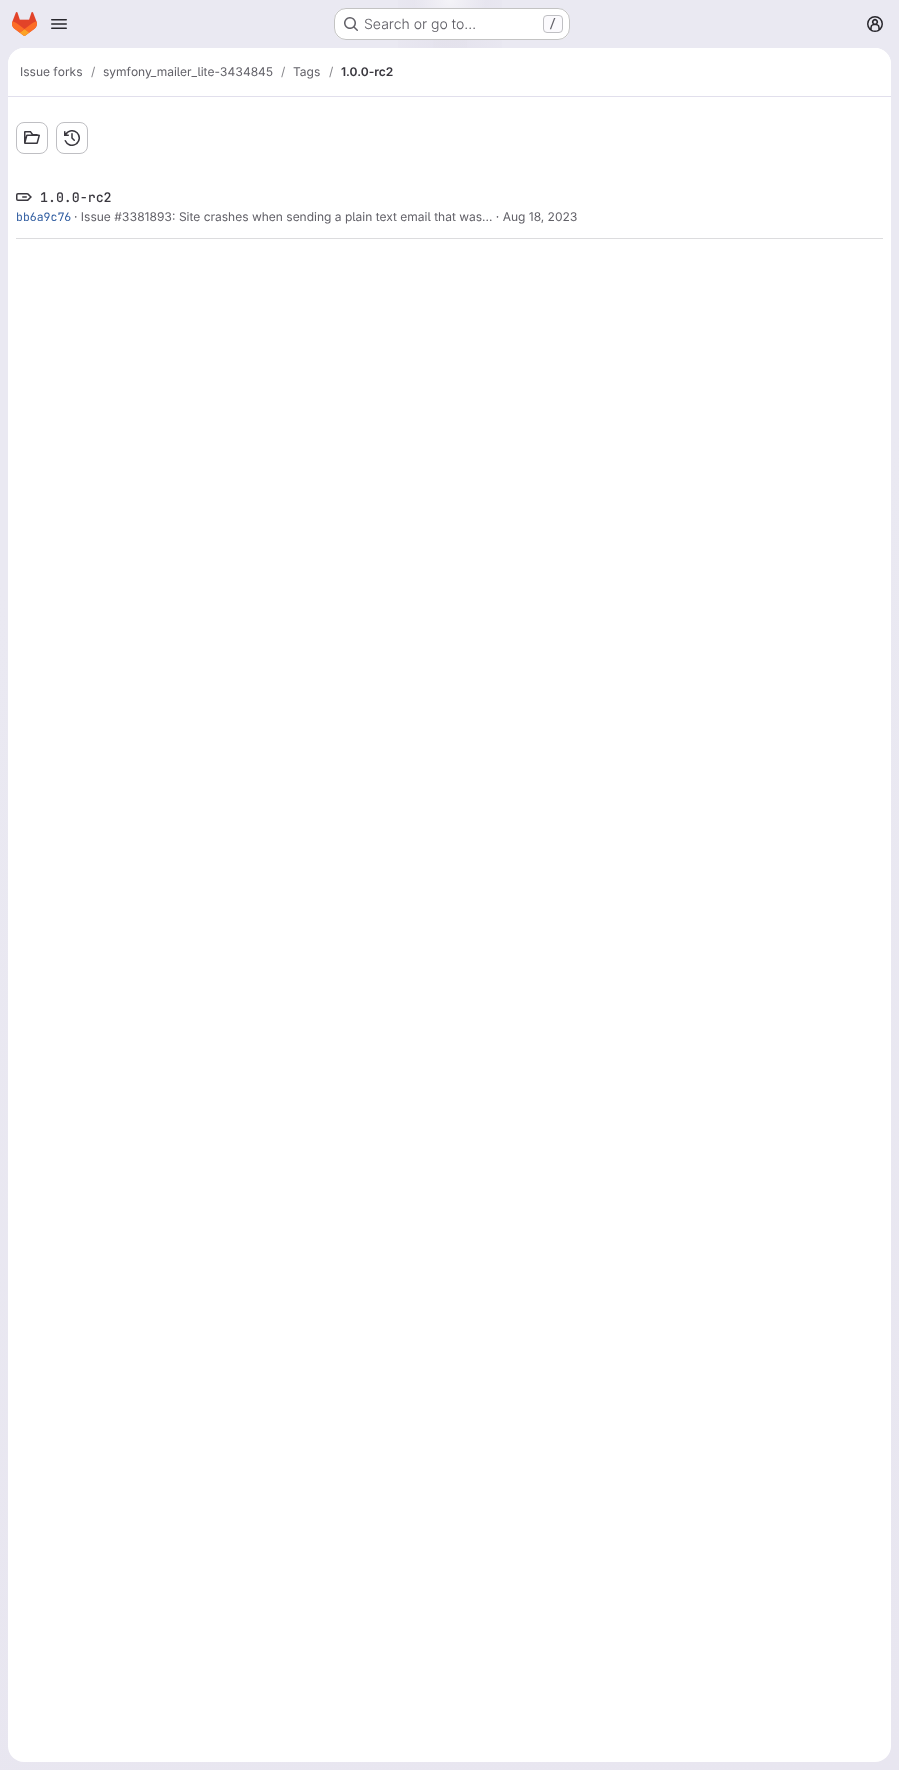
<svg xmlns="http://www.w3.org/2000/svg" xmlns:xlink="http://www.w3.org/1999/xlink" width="899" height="1770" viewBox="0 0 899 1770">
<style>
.cls-1{font:300 14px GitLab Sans;fill:#626168}
.cls-2{font:500 12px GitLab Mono;fill:#626168}
.cls-3{font:12px GitLab Sans;fill:#626168}
.cls-4{font:12px GitLab Sans;fill:#89888d}
.cls-5{font:600 12px GitLab Sans;fill:#3a383f}
.cls-6{font:600 13.25px GitLab Mono;fill:#3a383f}
.cls-7{font:11.5px GitLab Mono;fill:#2f5ca0}
</style>
<defs>
<linearGradient id="g1" gradientUnits="userSpaceOnUse" x1="614" y1="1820" x2="285" y2="-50"><stop offset="0" stop-color="#e8e6f0"/><stop offset="0.7" stop-color="#eae9f2"/></linearGradient>
<radialGradient id="g2" gradientUnits="userSpaceOnUse" cx="0" cy="0" r="1" gradientTransform="matrix(450 0 0 1770 450 0)"><stop offset="0" stop-color="#e4e2ed"/><stop offset="0.16" stop-color="#e4e2ed" stop-opacity="0"/></radialGradient>
<radialGradient id="g3" gradientUnits="userSpaceOnUse" cx="0" cy="0" r="1" gradientTransform="matrix(450 0 0 1770 450 0)"><stop offset="0" stop-color="#e4e2ec"/><stop offset="0.11" stop-color="#e4e2ec" stop-opacity="0"/></radialGradient>
<radialGradient id="g4" gradientUnits="userSpaceOnUse" cx="450" cy="0" r="1826"><stop offset="0" stop-color="#ffffff" stop-opacity="0.6"/><stop offset="0.02" stop-color="#ffffff" stop-opacity="0"/></radialGradient>
</defs>
<rect width="100%" height="100%" fill="#ffffff"/>
<rect fill="url(#g1)" x="0" y="0" width="899" height="1770"/>
<rect fill="url(#g2)" x="398" y="0" width="104" height="48"/>
<rect fill="url(#g3)" x="433" y="18" width="34" height="30"/>
<rect fill="url(#g4)" x="415" y="0" width="70" height="8"/>
<image xlink:href="image0.png" x="12" y="12" width="25" height="24"/>
<image xlink:href="image1.png" x="51" y="19" width="16" height="10"/>
<rect fill="#ffffff" x="334" y="8" width="236" height="32" rx="12"/>
<rect fill="none" stroke="#050506" stroke-opacity="0.24" x="334.5" y="8.5" width="235" height="31" rx="11.5"/>
<image xlink:href="image2.png" x="344" y="17" width="14" height="14"/>
<rect fill="#fbfafd" stroke="#bfbfc3" x="543.5" y="15.5" width="19" height="17" rx="3.5"/>
<image xlink:href="image3.png" x="867" y="16" width="16" height="16"/>
<rect fill="#ffffff" x="8" y="48" width="883" height="1714" rx="16"/>
<path fill="#ffffff" d="M24 48H875C884 48 891 55 891 64V97H8V64C8 55 15 48 24 48Z"/>
<rect fill="#e1dfec" x="8" y="96" width="883" height="1"/>
<rect fill="#dcdcde" x="16" y="238" width="867" height="1"/>
<rect fill="none" stroke="#bfbfc3" x="16.5" y="122.5" width="31" height="31" rx="7.5"/>
<image xlink:href="image4.png" x="24" y="131" width="16" height="13"/>
<rect fill="none" stroke="#bfbfc3" x="56.5" y="122.5" width="31" height="31" rx="7.5"/>
<image xlink:href="image5.png" x="64" y="130" width="16" height="16"/>
<image xlink:href="image6.png" x="16" y="193" width="16" height="8"/>
<text class="cls-1" x="364" y="29">Search or go to…</text>
<text class="cls-2" x="549" y="28">/</text>
<text class="cls-3" x="20" y="76">Issue forks</text>
<text class="cls-4" x="91" y="76">/</text>
<text class="cls-3" x="103" y="76">symfony_mailer_lite-3434845</text>
<text class="cls-4" x="281" y="76">/</text>
<text class="cls-3" x="293" y="76">Tags</text>
<text class="cls-4" x="329" y="76">/</text>
<text class="cls-5" x="341" y="76">1.0.0-rc2</text>
<text class="cls-6" x="40" y="202">1.0.0-rc2</text>
<text class="cls-7" x="16" y="221">bb6a9c76</text>
<text class="cls-3" x="74" y="221">· Issue #3381893: Site crashes when sending a plain text email that was... · Aug 18, 2023</text>
</svg>
